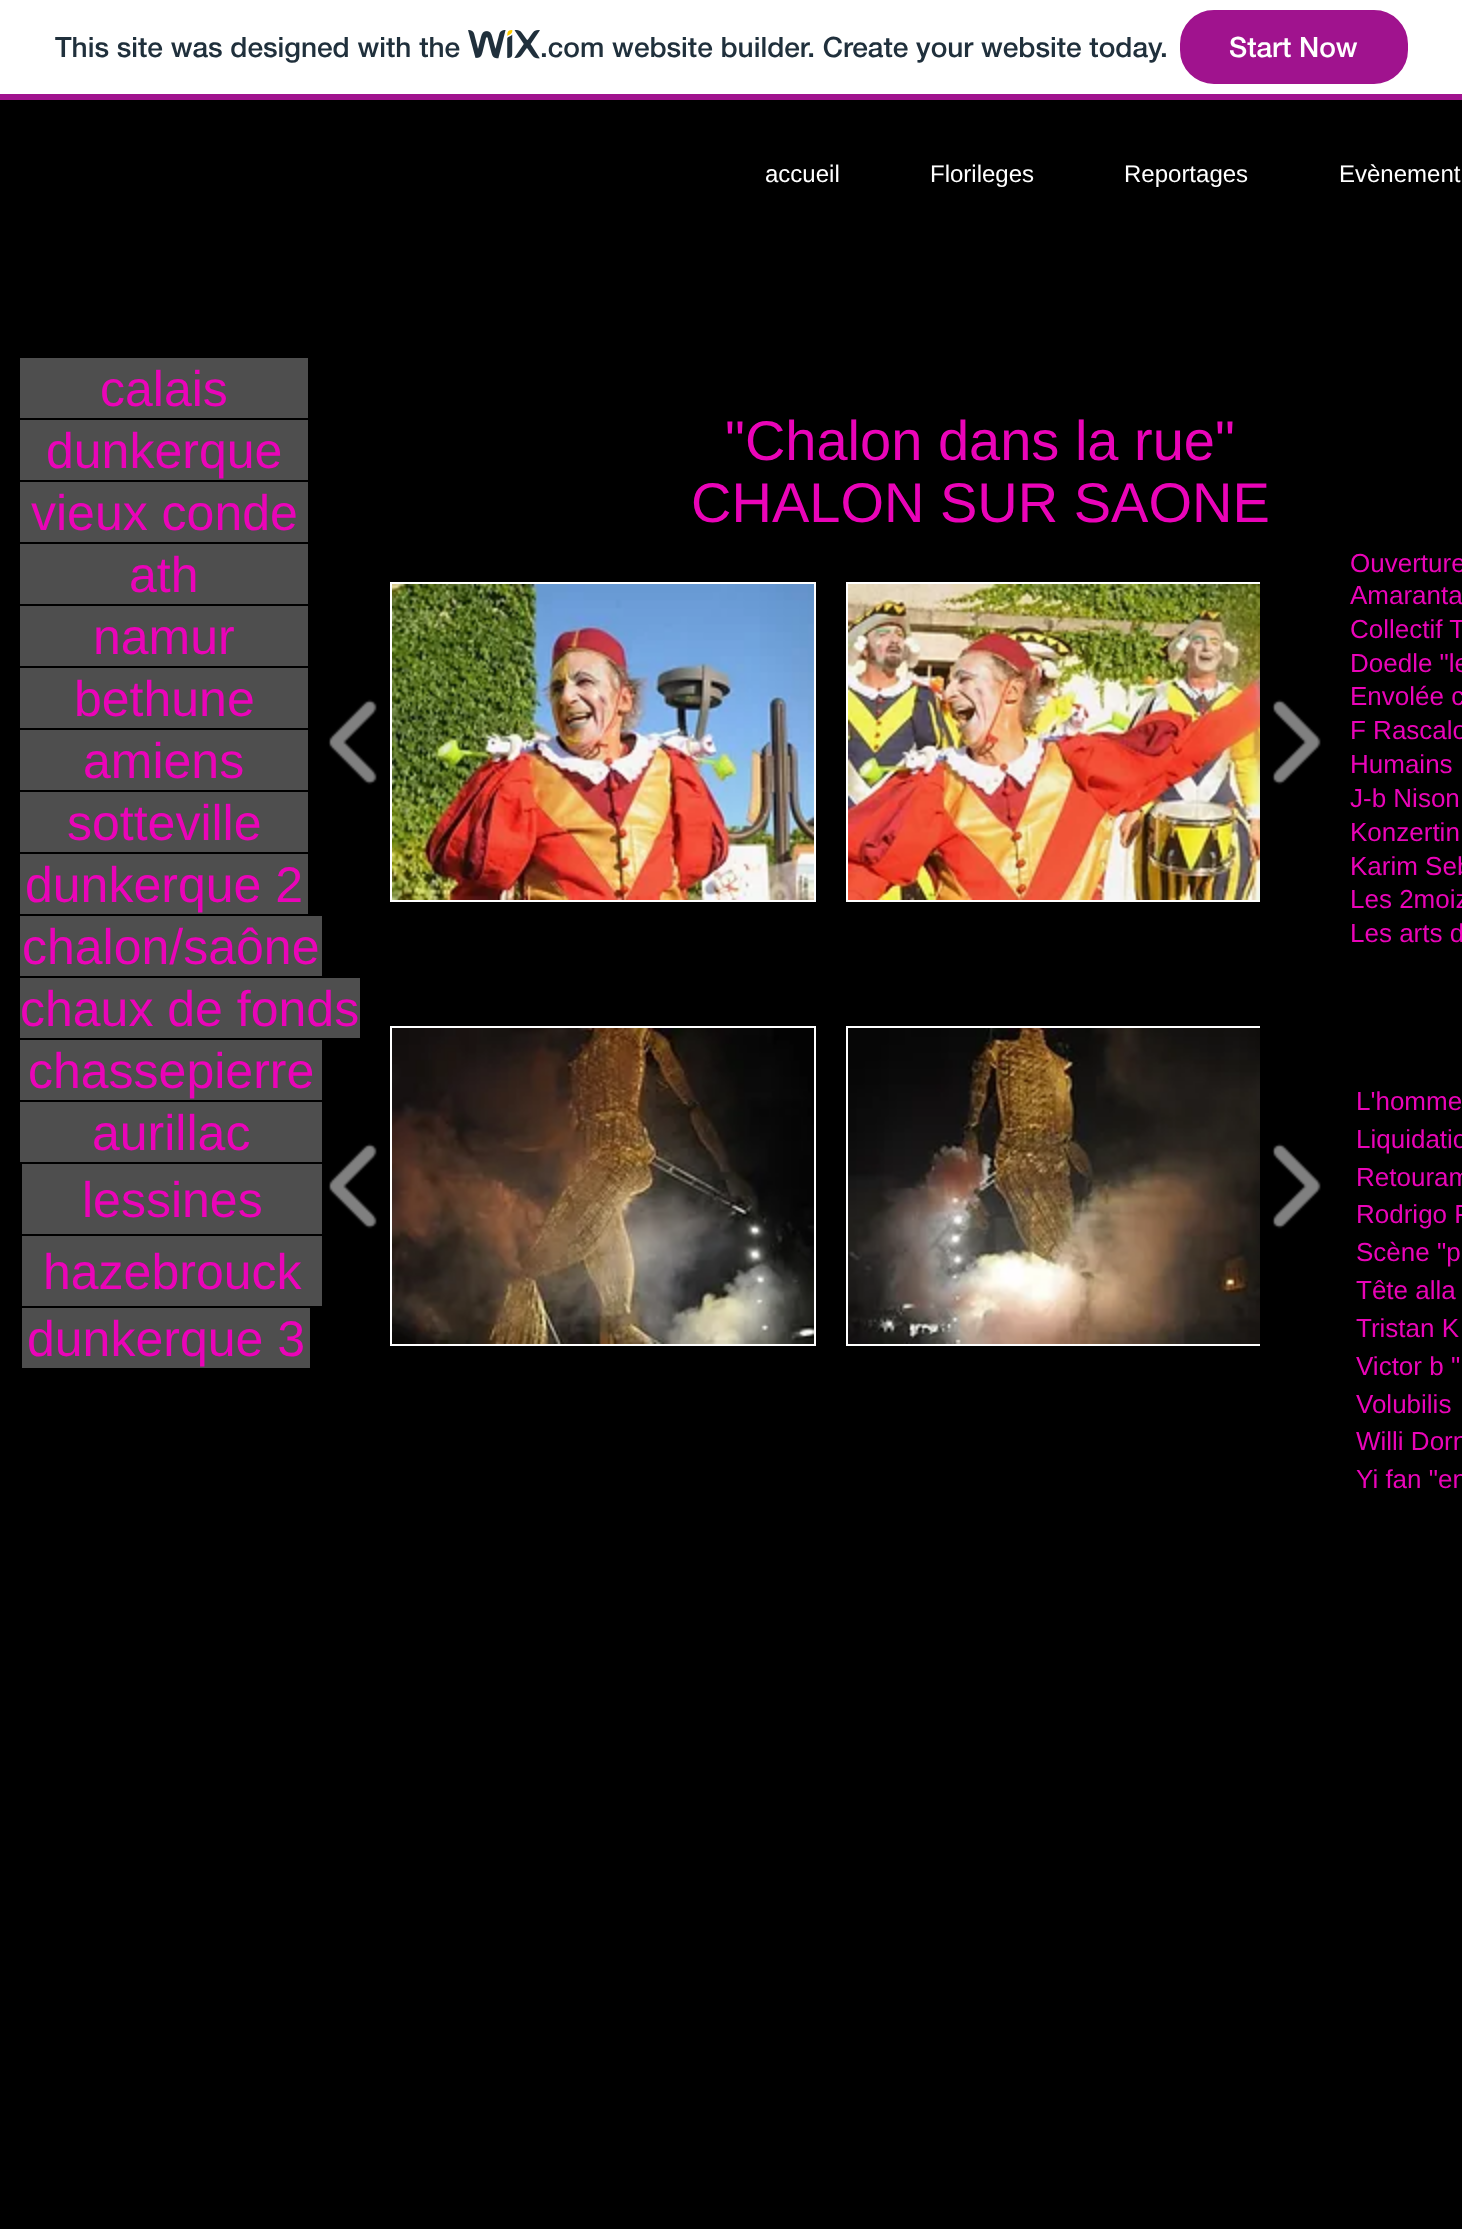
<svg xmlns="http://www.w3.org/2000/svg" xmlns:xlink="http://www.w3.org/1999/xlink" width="1462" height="2229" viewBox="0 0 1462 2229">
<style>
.cls-1{font:500 28px 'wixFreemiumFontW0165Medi';fill:#20303c}
.cls-2{font:500 28px 'wixFreemiumFontW0165Medi';fill:#ffffff}
.cls-3{font:24px Liberation Sans;fill:#ffffff}
.cls-4{font:50px Liberation Sans;fill:#ea04b8}
.cls-5{font:56px Liberation Sans;fill:#ea04b8}
.cls-6{font:26px Liberation Sans;fill:#ea04b8}
</style>
<rect width="100%" height="100%" fill="#ffffff"/>
<rect fill="#a0138e" x="0" y="94" width="1462" height="6"/>
<image xlink:href="image0.png" x="468" y="30" width="72" height="29"/>
<rect fill="#a0138e" stroke="#a0138e" stroke-width="2" x="1181" y="11" width="226" height="72" rx="33"/>
<rect fill="#000000" x="0" y="100" width="1462" height="2129"/>
<rect fill="#4e4e4e" x="20" y="358" width="288" height="60"/>
<rect fill="#4e4e4e" x="20" y="420" width="288" height="60"/>
<rect fill="#4e4e4e" x="20" y="482" width="288" height="60"/>
<rect fill="#4e4e4e" x="20" y="544" width="288" height="60"/>
<rect fill="#4e4e4e" x="20" y="606" width="288" height="60"/>
<image xlink:href="image1.png" x="328" y="699" width="49" height="86"/>
<rect fill="#ffffff" x="390" y="582" width="426" height="320"/>
<image xlink:href="image2.png" x="392" y="584" width="422" height="316"/>
<rect fill="#ffffff" x="846" y="582" width="414" height="320"/>
<image xlink:href="image3.png" x="848" y="584" width="412" height="316"/>
<image xlink:href="image4.png" x="1272" y="699" width="49" height="86"/>
<rect fill="#4e4e4e" x="20" y="668" width="288" height="60"/>
<rect fill="#4e4e4e" x="20" y="730" width="288" height="60"/>
<rect fill="#4e4e4e" x="20" y="792" width="288" height="60"/>
<rect fill="#4e4e4e" x="20" y="854" width="288" height="60"/>
<rect fill="#4e4e4e" x="20" y="916" width="302" height="60"/>
<rect fill="#4e4e4e" x="20" y="978" width="340" height="60"/>
<rect fill="#4e4e4e" x="20" y="1040" width="302" height="60"/>
<image xlink:href="image1.png" x="328" y="1143" width="49" height="86"/>
<rect fill="#ffffff" x="390" y="1026" width="426" height="320"/>
<image xlink:href="image5.png" x="392" y="1028" width="422" height="316"/>
<rect fill="#ffffff" x="846" y="1026" width="414" height="320"/>
<image xlink:href="image6.png" x="848" y="1028" width="412" height="316"/>
<image xlink:href="image4.png" x="1272" y="1143" width="49" height="86"/>
<rect fill="#4e4e4e" x="20" y="1102" width="302" height="60"/>
<rect fill="#4e4e4e" x="22" y="1164" width="300" height="70"/>
<rect fill="#4e4e4e" x="22" y="1236" width="300" height="70"/>
<rect fill="#4e4e4e" x="22" y="1308" width="288" height="60"/>
<text class="cls-1" x="55" y="57">This site was designed with the</text>
<text class="cls-1" x="540" y="57">.com website builder. Create your website today.</text>
<text class="cls-2" x="1229" y="57">Start Now</text>
<text class="cls-3" x="765" y="182">accueil</text>
<text class="cls-3" x="930" y="182">Florileges</text>
<text class="cls-3" x="1124" y="182">Reportages</text>
<text class="cls-3" x="1339" y="182">Evènement</text>
<text class="cls-4" x="100" y="406">calais</text>
<text class="cls-4" x="46" y="468">dunkerque</text>
<text class="cls-5" x="725" y="460">"Chalon dans la rue"</text>
<text class="cls-5" x="691" y="522">CHALON SUR SAONE</text>
<text class="cls-4" x="31" y="530">vieux conde</text>
<text class="cls-4" x="129" y="592">ath</text>
<text class="cls-6"><tspan x="1350" y="572">Ouverture</tspan><tspan x="1350" y="604">Amaranta</tspan><tspan x="1350" y="638">Collectif T</tspan><tspan x="1350" y="672">Doedle "le</tspan><tspan x="1350" y="705">Envolée c</tspan><tspan x="1350" y="739">F Rascalo</tspan><tspan x="1350" y="773">Humains</tspan><tspan x="1350" y="807">J-b Nison</tspan><tspan x="1350" y="841">Konzertin</tspan><tspan x="1350" y="875">Karim Seb</tspan><tspan x="1350" y="908">Les 2moiz</tspan><tspan x="1350" y="942">Les arts d</tspan></text>
<text class="cls-4" x="93" y="654">namur</text>
<text class="cls-4" x="74" y="716">bethune</text>
<text class="cls-4" x="83" y="778">amiens</text>
<text class="cls-4" x="67" y="840">sotteville</text>
<text class="cls-4" x="25" y="902">dunkerque 2</text>
<text class="cls-4" x="22" y="964">chalon/saône</text>
<text class="cls-4" x="20" y="1026">chaux de fonds</text>
<text class="cls-4" x="28" y="1088">chassepierre</text>
<text class="cls-4" x="92" y="1150">aurillac</text>
<text class="cls-6"><tspan x="1356" y="1110">L'homme</tspan><tspan x="1356" y="1148">Liquidatio</tspan><tspan x="1356" y="1186">Retouram</tspan><tspan x="1356" y="1223">Rodrigo P</tspan><tspan x="1356" y="1261">Scène "p</tspan><tspan x="1356" y="1299">Tête alla</tspan><tspan x="1356" y="1337">Tristan K</tspan><tspan x="1356" y="1375">Victor b "</tspan><tspan x="1356" y="1413">Volubilis</tspan><tspan x="1356" y="1450">Willi Dorn</tspan><tspan x="1356" y="1488">Yi fan "en</tspan></text>
<text class="cls-4" x="82" y="1217">lessines</text>
<text class="cls-4" x="43" y="1289">hazebrouck</text>
<text class="cls-4" x="27" y="1356">dunkerque 3</text>
</svg>
